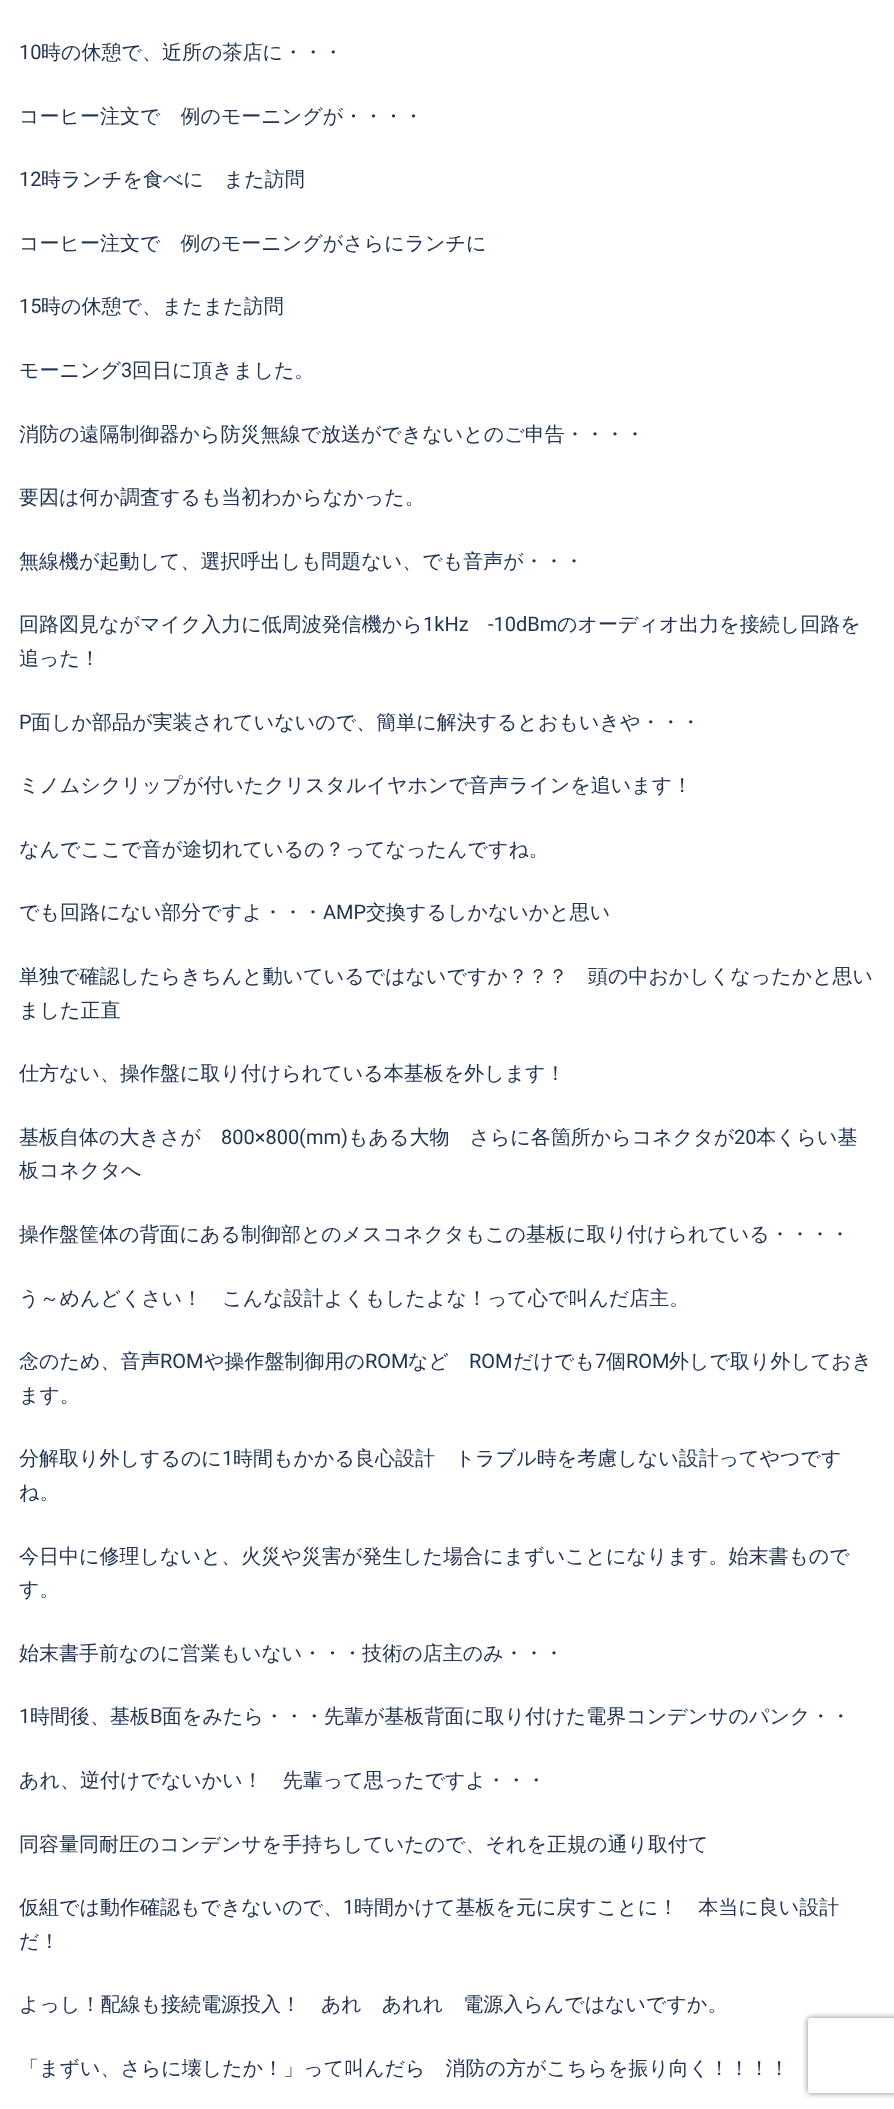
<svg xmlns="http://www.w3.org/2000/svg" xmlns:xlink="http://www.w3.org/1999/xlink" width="894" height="2109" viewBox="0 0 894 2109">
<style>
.cls-1{font:20px Roboto;fill:#233452}
.cls-2{font:500 20px WenQuanYi Zen Hei;fill:#233452}
</style>
<defs>
<clipPath id="clip1"><path d="M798 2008H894V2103H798ZM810.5 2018H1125.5C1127 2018 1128 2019 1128 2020.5V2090.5C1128 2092 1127 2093 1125.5 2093H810.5C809 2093 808 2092 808 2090.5V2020.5C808 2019 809 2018 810.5 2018Z" clip-rule="evenodd"/></clipPath>
</defs>
<rect width="100%" height="100%" fill="#ffffff"/>
<g clip-path="url(#clip1)">
<rect fill="#808080" filter="blur(3px)" x="808" y="2018" width="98" height="75" rx="2.5"/>
</g>
<text class="cls-1" x="19" y="59">10</text>
<text class="cls-2" x="41" y="59">時の休憩で、近所の茶店に・・・</text>
<text class="cls-2" x="19" y="123">コーヒー注文で　例のモーニングが・・・・</text>
<text class="cls-1" x="19" y="186">12</text>
<text class="cls-2" x="41" y="186">時ランチを食べに　また訪問</text>
<text class="cls-2" x="19" y="250">コーヒー注文で　例のモーニングがさらにランチに</text>
<text class="cls-1" x="19" y="313">15</text>
<text class="cls-2" x="41" y="313">時の休憩で、またまた訪問</text>
<text class="cls-2" x="19" y="377">モーニング</text>
<text class="cls-1" x="121" y="377">3</text>
<text class="cls-2" x="132" y="377">回日に頂きました。</text>
<text class="cls-2" x="19" y="441">消防の遠隔制御器から防災無線で放送ができないとのご申告・・・・</text>
<text class="cls-2" x="19" y="504">要因は何か調査するも当初わからなかった。</text>
<text class="cls-2" x="19" y="568">無線機が起動して、選択呼出しも問題ない、でも音声が・・・</text>
<text class="cls-2" x="19" y="631">回路図見ながマイク入力に低周波発信機から</text>
<text class="cls-1" x="423" y="631">1kHz</text>
<text class="cls-1" x="488" y="631">-10dBm</text>
<text class="cls-2" x="557" y="631">のオーディオ出力を接続し回路を</text>
<text class="cls-2" x="19" y="665">追った！</text>
<text class="cls-1" x="19" y="729">P</text>
<text class="cls-2" x="31" y="729">面しか部品が実装されていないので、簡単に解決するとおもいきや・・・</text>
<text class="cls-2" x="19" y="792">ミノムシクリップが付いたクリスタルイヤホンで音声ラインを追います！</text>
<text class="cls-2" x="19" y="856">なんでここで音が途切れているの？ってなったんですね。</text>
<text class="cls-2" x="19" y="919">でも回路にない部分ですよ・・・</text>
<text class="cls-1" x="323" y="919">AMP</text>
<text class="cls-2" x="366" y="919">交換するしかないかと思い</text>
<text class="cls-2"><tspan x="19" y="983">単独で確認したらきちんと動いているではないですか？？？　頭の中おかしくなったかと思い</tspan><tspan x="19" y="1017">ました正直</tspan></text>
<text class="cls-2" x="19" y="1080">仕方ない、操作盤に取り付けられている本基板を外します！</text>
<text class="cls-2" x="19" y="1144">基板自体の大きさが</text>
<text class="cls-1" x="221" y="1144">800×800(mm)</text>
<text class="cls-2" x="348" y="1144">もある大物　さらに各箇所からコネクタが</text>
<text class="cls-1" x="734" y="1144">20</text>
<text class="cls-2" x="756" y="1144">本くらい基</text>
<text class="cls-2" x="19" y="1177">板コネクタへ</text>
<text class="cls-2" x="19" y="1241">操作盤筐体の背面にある制御部とのメスコネクタもこの基板に取り付けられている・・・・</text>
<text class="cls-2" x="19" y="1305">う～めんどくさい！　こんな設計よくもしたよな！って心で叫んだ店主。</text>
<text class="cls-2" x="19" y="1368">念のため、音声</text>
<text class="cls-1" x="160" y="1368">ROM</text>
<text class="cls-2" x="204" y="1368">や操作盤制御用の</text>
<text class="cls-1" x="365" y="1368">ROM</text>
<text class="cls-2" x="408" y="1368">など</text>
<text class="cls-1" x="469" y="1368">ROM</text>
<text class="cls-2" x="513" y="1368">だけでも</text>
<text class="cls-1" x="595" y="1368">7</text>
<text class="cls-2" x="606" y="1368">個</text>
<text class="cls-1" x="626" y="1368">ROM</text>
<text class="cls-2" x="669" y="1368">外しで取り外しておき</text>
<text class="cls-2" x="19" y="1402">ます。</text>
<text class="cls-2" x="19" y="1465">分解取り外しするのに</text>
<text class="cls-1" x="222" y="1465">1</text>
<text class="cls-2" x="233" y="1465">時間もかかる良心設計　トラブル時を考慮しない設計ってやつです</text>
<text class="cls-2" x="19" y="1499">ね。</text>
<text class="cls-2"><tspan x="19" y="1563">今日中に修理しないと、火災や災害が発生した場合にまずいことになります。始末書もので</tspan><tspan x="19" y="1596">す。</tspan></text>
<text class="cls-2" x="19" y="1660">始末書手前なのに営業もいない・・・技術の店主のみ・・・</text>
<text class="cls-1" x="19" y="1723">1</text>
<text class="cls-2" x="30" y="1723">時間後、基板</text>
<text class="cls-1" x="150" y="1723">B</text>
<text class="cls-2" x="162" y="1723">面をみたら・・・先輩が基板背面に取り付けた電界コンデンサのパンク・・</text>
<text class="cls-2" x="19" y="1787">あれ、逆付けでないかい！　先輩って思ったですよ・・・</text>
<text class="cls-2" x="19" y="1851">同容量同耐圧のコンデンサを手持ちしていたので、それを正規の通り取付て</text>
<text class="cls-2" x="19" y="1914">仮組では動作確認もできないので、</text>
<text class="cls-1" x="343" y="1914">1</text>
<text class="cls-2" x="354" y="1914">時間かけて基板を元に戻すことに！　本当に良い設計</text>
<text class="cls-2" x="19" y="1948">だ！</text>
<text class="cls-2" x="19" y="2011">よっし！配線も接続電源投入！　あれ　あれれ　電源入らんではないですか。</text>
<text class="cls-2" x="19" y="2075">「まずい、さらに壊したか！」って叫んだら　消防の方がこちらを振り向く！！！！</text>
</svg>
